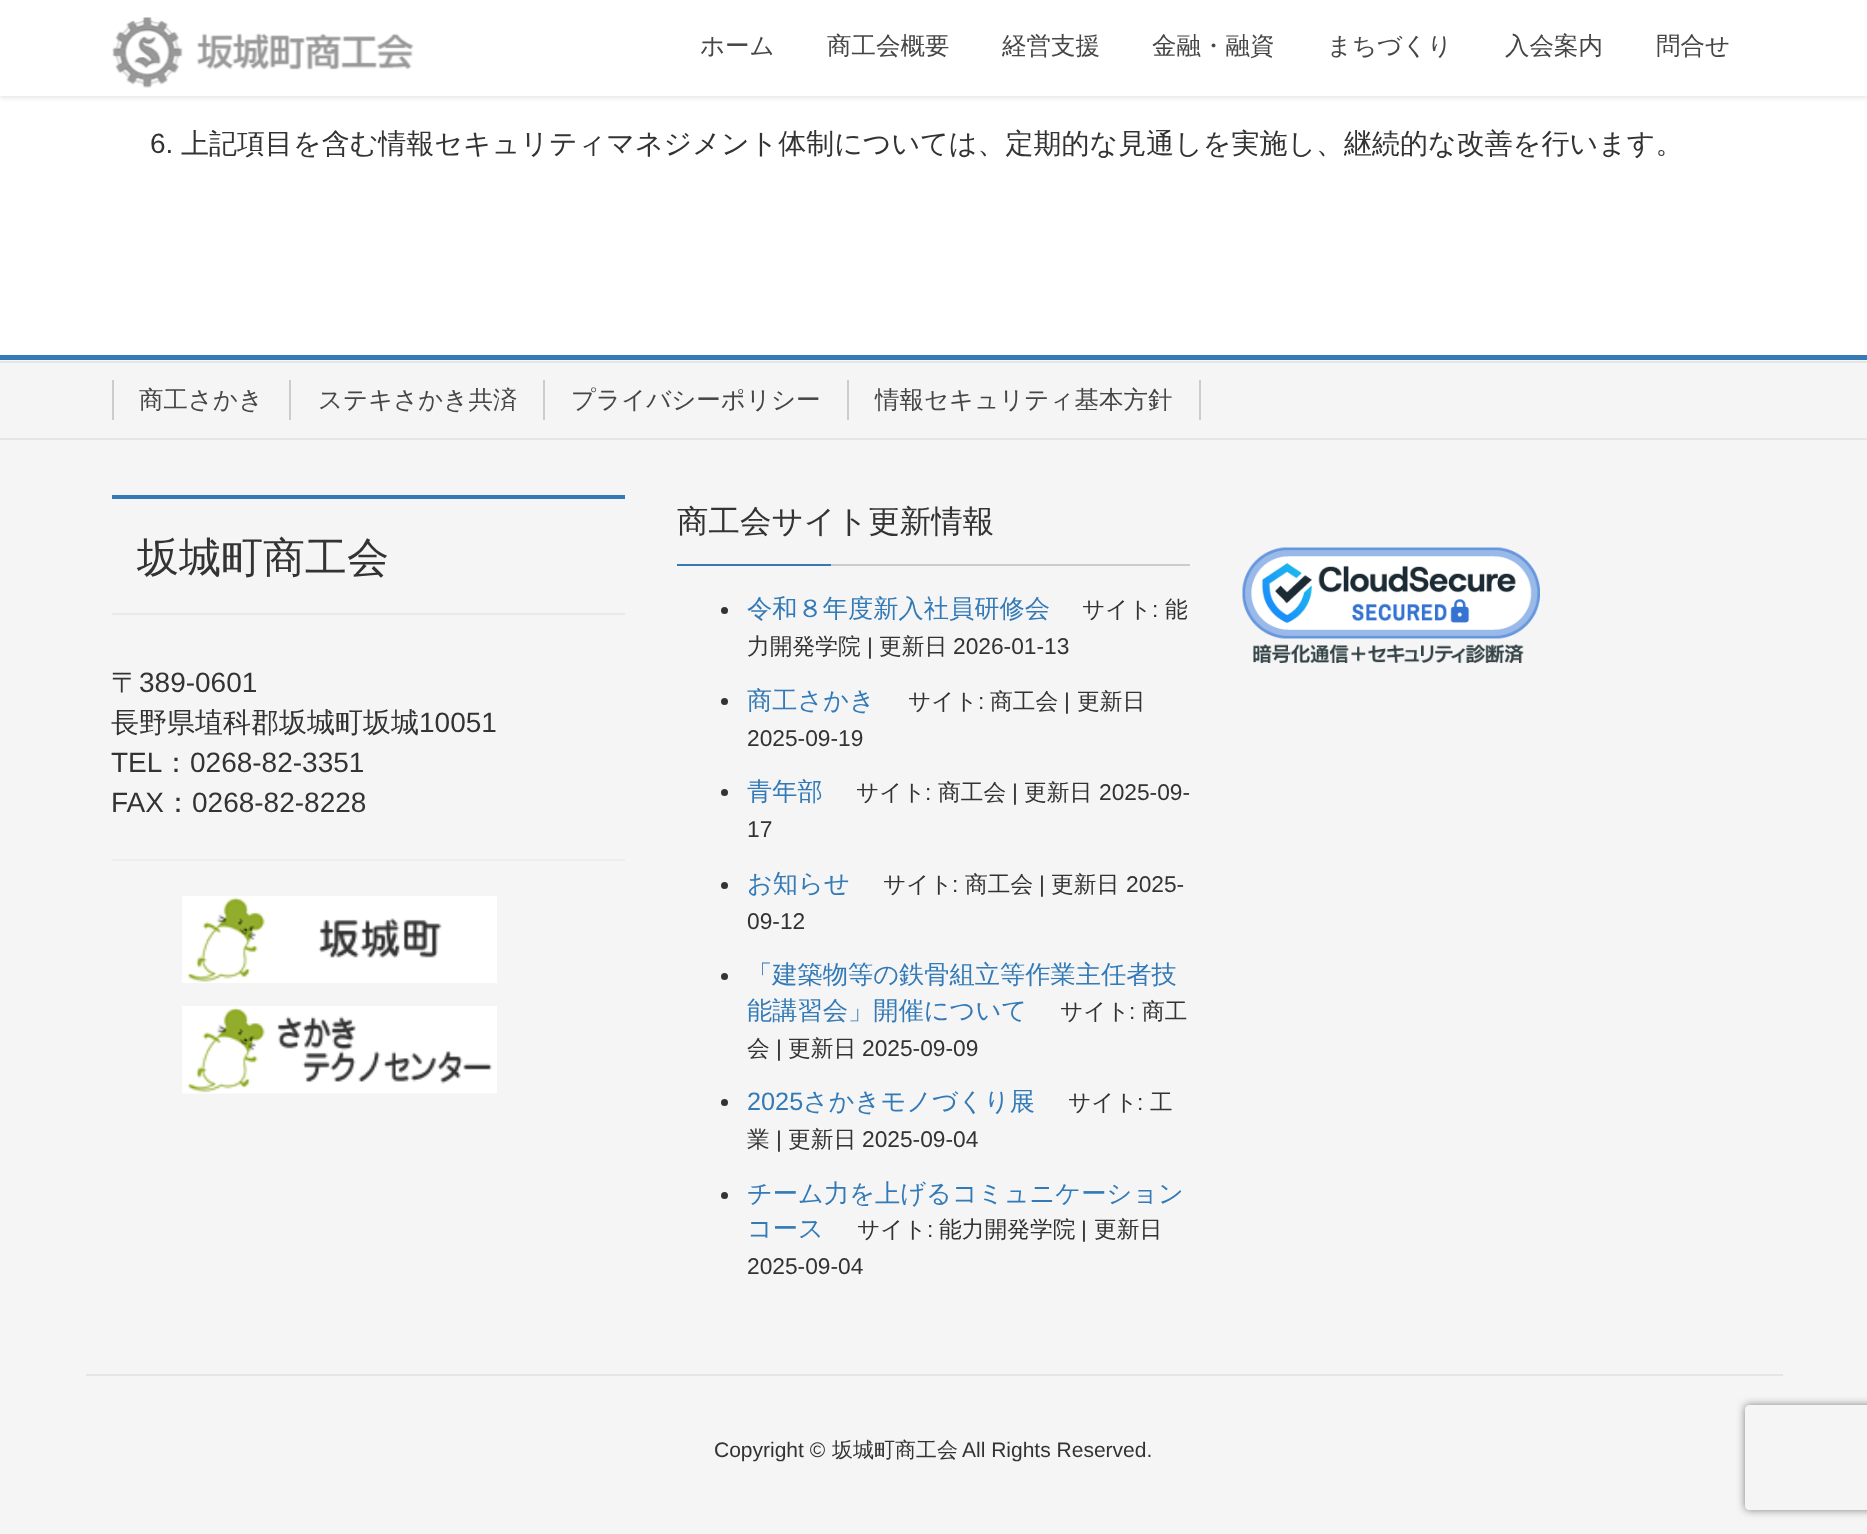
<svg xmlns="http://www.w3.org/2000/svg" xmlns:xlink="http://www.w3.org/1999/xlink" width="1867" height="1534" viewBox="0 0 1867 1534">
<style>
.cls-1{font:500 24.5px WenQuanYi Zen Hei;fill:#464646}
.cls-2{font:28px Liberation Sans;fill:#333333}
.cls-3{font:500 28px WenQuanYi Zen Hei;fill:#333333}
.cls-4{font:500 42px WenQuanYi Zen Hei;fill:#333333}
.cls-5{font:500 31.5px WenQuanYi Zen Hei;fill:#333333}
.cls-6{font:500 25.25px WenQuanYi Zen Hei;fill:#337ab7}
.cls-7{font:500 22.75px WenQuanYi Zen Hei;fill:#333333}
.cls-8{font:22.75px Liberation Sans;fill:#333333}
.cls-9{font:25.25px Liberation Sans;fill:#337ab7}
.cls-10{font:21px Liberation Sans;fill:#333333}
.cls-11{font:500 21px WenQuanYi Zen Hei;fill:#333333}
</style>
<defs>
<clipPath id="clip1"><path d="M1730 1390H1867V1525H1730ZM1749 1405H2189C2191 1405 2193 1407 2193 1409V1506C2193 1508 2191 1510 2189 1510H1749C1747 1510 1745 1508 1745 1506V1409C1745 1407 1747 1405 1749 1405Z" clip-rule="evenodd"/></clipPath>
</defs>
<rect width="100%" height="100%" fill="#ffffff"/>
<rect fill="#000000" fill-opacity="0.1" filter="blur(2.5px)" x="0" y="2" width="1867" height="96"/>
<rect fill="#ffffff" x="0" y="0" width="1867" height="96"/>
<image xlink:href="image0.png" x="112" y="17" width="302" height="71"/>
<rect fill="#f5f5f5" x="0" y="360" width="1867" height="1174"/>
<rect fill="#337ab7" x="0" y="355" width="1867" height="5"/>
<rect fill="#e5e5e5" x="0" y="361" width="1867" height="2"/>
<rect fill="#e5e5e5" x="0" y="438" width="1867" height="2"/>
<rect fill="#cccccc" x="112" y="380" width="2" height="40"/>
<rect fill="#cccccc" x="289" y="380" width="2" height="40"/>
<rect fill="#cccccc" x="543" y="380" width="2" height="40"/>
<rect fill="#cccccc" x="1199" y="380" width="2" height="40"/>
<rect fill="#cccccc" x="847" y="380" width="2" height="40"/>
<rect fill="#337ab7" x="112" y="495" width="513" height="4"/>
<rect fill="#e9e9e9" x="112" y="613" width="513" height="2"/>
<rect fill="#eeeeee" x="112" y="859" width="513" height="2"/>
<image xlink:href="image1.png" x="182" y="896" width="315" height="87"/>
<image xlink:href="image2.png" x="182" y="1006" width="315" height="88"/>
<rect fill="#cccccc" x="831" y="564" width="359" height="2"/>
<rect fill="#337ab7" x="677" y="564" width="154" height="2"/>
<circle fill="#333333" cx="724.5" cy="610.5" r="3.5"/>
<circle fill="#333333" cx="724.5" cy="701.5" r="3.5"/>
<circle fill="#333333" cx="724.5" cy="792.5" r="3.5"/>
<circle fill="#333333" cx="724.5" cy="885.5" r="3.5"/>
<circle fill="#333333" cx="724.5" cy="976.5" r="3.5"/>
<circle fill="#333333" cx="724.5" cy="1102.5" r="3.5"/>
<circle fill="#333333" cx="724.5" cy="1195.5" r="3.5"/>
<image xlink:href="image3.png" x="1242" y="547" width="298" height="116"/>
<rect fill="#e5e5e5" x="86" y="1374" width="1697" height="2"/>
<g clip-path="url(#clip1)">
<rect fill="#808080" filter="blur(4.5px)" x="1745" y="1405" width="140" height="105" rx="4"/>
</g>
<text class="cls-1" x="700" y="54">ホーム</text>
<text class="cls-1" x="827" y="54">商工会概要</text>
<text class="cls-1" x="1002" y="54">経営支援</text>
<text class="cls-1" x="1152" y="54">金融・融資</text>
<text class="cls-1" x="1327" y="54">まちづくり</text>
<text class="cls-1" x="1505" y="54">入会案内</text>
<text class="cls-1" x="1656" y="54">問合せ</text>
<text class="cls-2" x="150" y="153">6.</text>
<text class="cls-3" x="181" y="153">上記項目を含む情報セキュリティマネジメント体制については、定期的な見通しを実施し、継続的な改善を行います。</text>
<text class="cls-1" x="139" y="408">商工さかき</text>
<text class="cls-1" x="318" y="408">ステキさかき共済</text>
<text class="cls-1" x="571" y="408">プライバシーポリシー</text>
<text class="cls-1" x="875" y="408">情報セキュリティ基本方針</text>
<text class="cls-4" x="137" y="572">坂城町商工会</text>
<text class="cls-3" x="111" y="692">〒</text>
<text class="cls-2" x="139" y="692">389-0601</text>
<text class="cls-3" x="111" y="732">長野県埴科郡坂城町坂城</text>
<text class="cls-2" x="419" y="732">10051</text>
<text class="cls-2" x="111" y="772">TEL</text>
<text class="cls-3" x="162" y="772">：</text>
<text class="cls-2" x="190" y="772">0268-82-3351</text>
<text class="cls-2" x="111" y="812">FAX</text>
<text class="cls-3" x="164" y="812">：</text>
<text class="cls-2" x="192" y="812">0268-82-8228</text>
<text class="cls-5" x="677" y="532">商工会サイト更新情報</text>
<text class="cls-6" x="747" y="617">令和８年度新入社員研修会</text>
<text class="cls-7" x="1082" y="617">サイト</text>
<text class="cls-8" x="1152" y="617">:</text>
<text class="cls-7" x="1165" y="617">能</text>
<text class="cls-7" x="747" y="654">力開発学院</text>
<text class="cls-8" x="867" y="654">|</text>
<text class="cls-7" x="879" y="654">更新日</text>
<text class="cls-8" x="953" y="654">2026-01-13</text>
<text class="cls-6" x="747" y="709">商工さかき</text>
<text class="cls-7" x="908" y="709">サイト</text>
<text class="cls-8" x="978" y="709">:</text>
<text class="cls-7" x="990" y="709">商工会</text>
<text class="cls-8" x="1064" y="709">|</text>
<text class="cls-7" x="1077" y="709">更新日</text>
<text class="cls-8" x="747" y="746">2025-09-19</text>
<text class="cls-6" x="747" y="800">青年部</text>
<text class="cls-7" x="856" y="800">サイト</text>
<text class="cls-8" x="925" y="800">:</text>
<text class="cls-7" x="938" y="800">商工会</text>
<text class="cls-8" x="1012" y="800">|</text>
<text class="cls-7" x="1024" y="800">更新日</text>
<text class="cls-8" x="1099" y="800">2025-09-</text>
<text class="cls-8" x="747" y="837">17</text>
<text class="cls-6" x="747" y="892">お知らせ</text>
<text class="cls-7" x="883" y="892">サイト</text>
<text class="cls-8" x="952" y="892">:</text>
<text class="cls-7" x="965" y="892">商工会</text>
<text class="cls-8" x="1039" y="892">|</text>
<text class="cls-7" x="1051" y="892">更新日</text>
<text class="cls-8" x="1126" y="892">2025-</text>
<text class="cls-8" x="747" y="929">09-12</text>
<text class="cls-6"><tspan x="747" y="983">「建築物等の鉄骨組立等作業主任者技</tspan><tspan x="747" y="1019">能講習会」開催について</tspan></text>
<text class="cls-7" x="1060" y="1019">サイト</text>
<text class="cls-8" x="1129" y="1019">:</text>
<text class="cls-7" x="1142" y="1019">商工</text>
<text class="cls-7" x="747" y="1056">会</text>
<text class="cls-8" x="776" y="1056">|</text>
<text class="cls-7" x="788" y="1056">更新日</text>
<text class="cls-8" x="862" y="1056">2025-09-09</text>
<text class="cls-9" x="747" y="1110">2025</text>
<text class="cls-6" x="803" y="1110">さかきモノづくり展</text>
<text class="cls-7" x="1068" y="1110">サイト</text>
<text class="cls-8" x="1137" y="1110">:</text>
<text class="cls-7" x="1150" y="1110">工</text>
<text class="cls-7" x="747" y="1147">業</text>
<text class="cls-8" x="776" y="1147">|</text>
<text class="cls-7" x="788" y="1147">更新日</text>
<text class="cls-8" x="862" y="1147">2025-09-04</text>
<text class="cls-6"><tspan x="747" y="1202">チーム力を上げるコミュニケーション</tspan><tspan x="747" y="1237">コース</tspan></text>
<text class="cls-7" x="857" y="1237">サイト</text>
<text class="cls-8" x="927" y="1237">:</text>
<text class="cls-7" x="939" y="1237">能力開発学院</text>
<text class="cls-8" x="1081" y="1237">|</text>
<text class="cls-7" x="1094" y="1237">更新日</text>
<text class="cls-8" x="747" y="1274">2025-09-04</text>
<text class="cls-10" x="714" y="1457">Copyright ©</text>
<text class="cls-11" x="832" y="1457">坂城町商工会</text>
<text class="cls-10" x="962" y="1457">All Rights Reserved.</text>
</svg>
